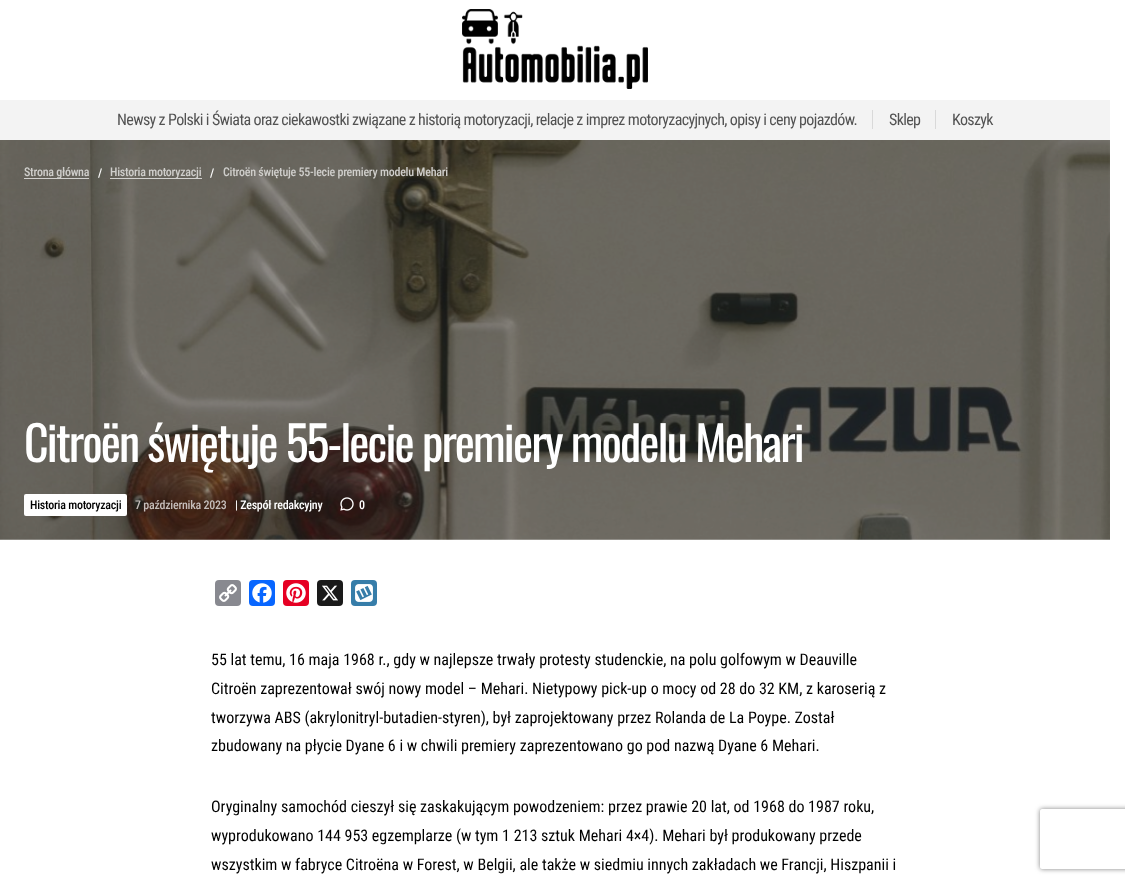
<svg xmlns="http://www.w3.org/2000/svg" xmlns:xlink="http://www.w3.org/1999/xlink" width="1125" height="883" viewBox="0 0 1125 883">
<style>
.cls-1{font:16px Roboto Condensed;letter-spacing:-0.64px;fill:#525252}
.cls-2{font:500 12px Roboto Condensed;letter-spacing:-0.25px;fill:#cfcecb}
.cls-3{font:500 12px Roboto Condensed;letter-spacing:-0.25px;fill:#ffffff}
.cls-4{font:48px Oswald;letter-spacing:-1.9px;fill:#ffffff}
.cls-5{font:500 12px Roboto Condensed;letter-spacing:-0.25px;fill:#000000}
.cls-6{font:500 12px Roboto Condensed;letter-spacing:-0.25px;fill:#c5bdba}
.cls-7{font:16px Roboto Condensed;fill:#000000}
</style>
<defs>
<clipPath id="clip1"><path d="M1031 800H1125V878H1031ZM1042 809H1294C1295 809 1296 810 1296 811V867C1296 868 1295 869 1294 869H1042C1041 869 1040 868 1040 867V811C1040 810 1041 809 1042 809Z" clip-rule="evenodd"/></clipPath>
</defs>
<rect width="100%" height="100%" fill="#ffffff"/>
<image xlink:href="image0.png" x="462" y="9" width="186" height="80"/>
<rect fill="#f3f3f3" x="0" y="100" width="1110" height="40"/>
<rect fill="#d9d9d9" x="872" y="110" width="1" height="19"/>
<rect fill="#d9d9d9" x="935" y="110" width="1" height="19"/>
<image xlink:href="image1.png" x="0" y="140" width="1110" height="400"/>
<rect fill="#ffffff" fill-opacity="0.7" x="24" y="178" width="65" height="1"/>
<rect fill="#ffffff" fill-opacity="0.7" x="110" y="178" width="92" height="1"/>
<rect fill="#ffffff" x="24" y="494" width="103" height="22" rx="2"/>
<image xlink:href="image2.png" x="340" y="497" width="14" height="14"/>
<rect fill="#888990" x="215" y="580" width="26" height="26" rx="4"/>
<image xlink:href="image3.png" x="219" y="584" width="18" height="18"/>
<rect fill="#0866ff" x="249" y="580" width="26" height="26" rx="4"/>
<image xlink:href="image4.png" x="252" y="583" width="20" height="20"/>
<rect fill="#e60023" x="283" y="580" width="26" height="26" rx="4"/>
<image xlink:href="image5.png" x="286" y="583" width="20" height="20"/>
<rect fill="#1a1a1a" x="317" y="580" width="26" height="26" rx="4"/>
<image xlink:href="image6.png" x="322" y="585" width="16" height="16"/>
<rect fill="#367da9" x="351" y="580" width="26" height="26" rx="4"/>
<image xlink:href="image7.png" x="355" y="584" width="18" height="18"/>
<g clip-path="url(#clip1)">
<rect fill="#808080" filter="blur(2.5px)" x="1040" y="809" width="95" height="60" rx="2"/>
</g>
<text class="cls-1" x="117" y="125">Newsy z Polski i Świata oraz ciekawostki związane z historią motoryzacji, relacje z imprez motoryzacyjnych, opisy i ceny pojazdów.</text>
<text class="cls-1" x="889" y="125">Sklep</text>
<text class="cls-1" x="952" y="125">Koszyk</text>
<text class="cls-2" x="24" y="176">Strona główna</text>
<text class="cls-3" x="98" y="177">/</text>
<text class="cls-2" x="110" y="176">Historia motoryzacji</text>
<text class="cls-3" x="210" y="177">/</text>
<text class="cls-2" x="223" y="176">Citroën świętuje 55-lecie premiery modelu Mehari</text>
<text class="cls-4" x="24" y="462">Citroën świętuje 55-lecie premiery modelu Mehari</text>
<text class="cls-5" x="30" y="509">Historia motoryzacji</text>
<text class="cls-6" x="135" y="509">7 października 2023</text>
<text class="cls-3" x="235" y="509">| Zespół redakcyjny</text>
<text class="cls-3" x="359" y="509">0</text>
<text class="cls-7"><tspan x="211" y="665">55 lat temu, 16 maja 1968 r., gdy w najlepsze trwały protesty studenckie, na polu golfowym w Deauville</tspan><tspan x="211" y="694">Citroën zaprezentował swój nowy model – Mehari. Nietypowy pick-up o mocy od 28 do 32 KM, z karoserią z</tspan><tspan x="211" y="723">tworzywa ABS (akrylonitryl-butadien-styren), był zaprojektowany przez Rolanda de La Poype. Został</tspan><tspan x="211" y="751">zbudowany na płycie Dyane 6 i w chwili premiery zaprezentowano go pod nazwą Dyane 6 Mehari.</tspan></text>
<text class="cls-7"><tspan x="211" y="812">Oryginalny samochód cieszył się zaskakującym powodzeniem: przez prawie 20 lat, od 1968 do 1987 roku,</tspan><tspan x="211" y="841">wyprodukowano 144 953 egzemplarze (w tym 1 213 sztuk Mehari 4×4). Mehari był produkowany przede</tspan><tspan x="211" y="870">wszystkim w fabryce Citroëna w Forest, w Belgii, ale także w siedmiu innych zakładach we Francji, Hiszpanii i</tspan></text>
</svg>
